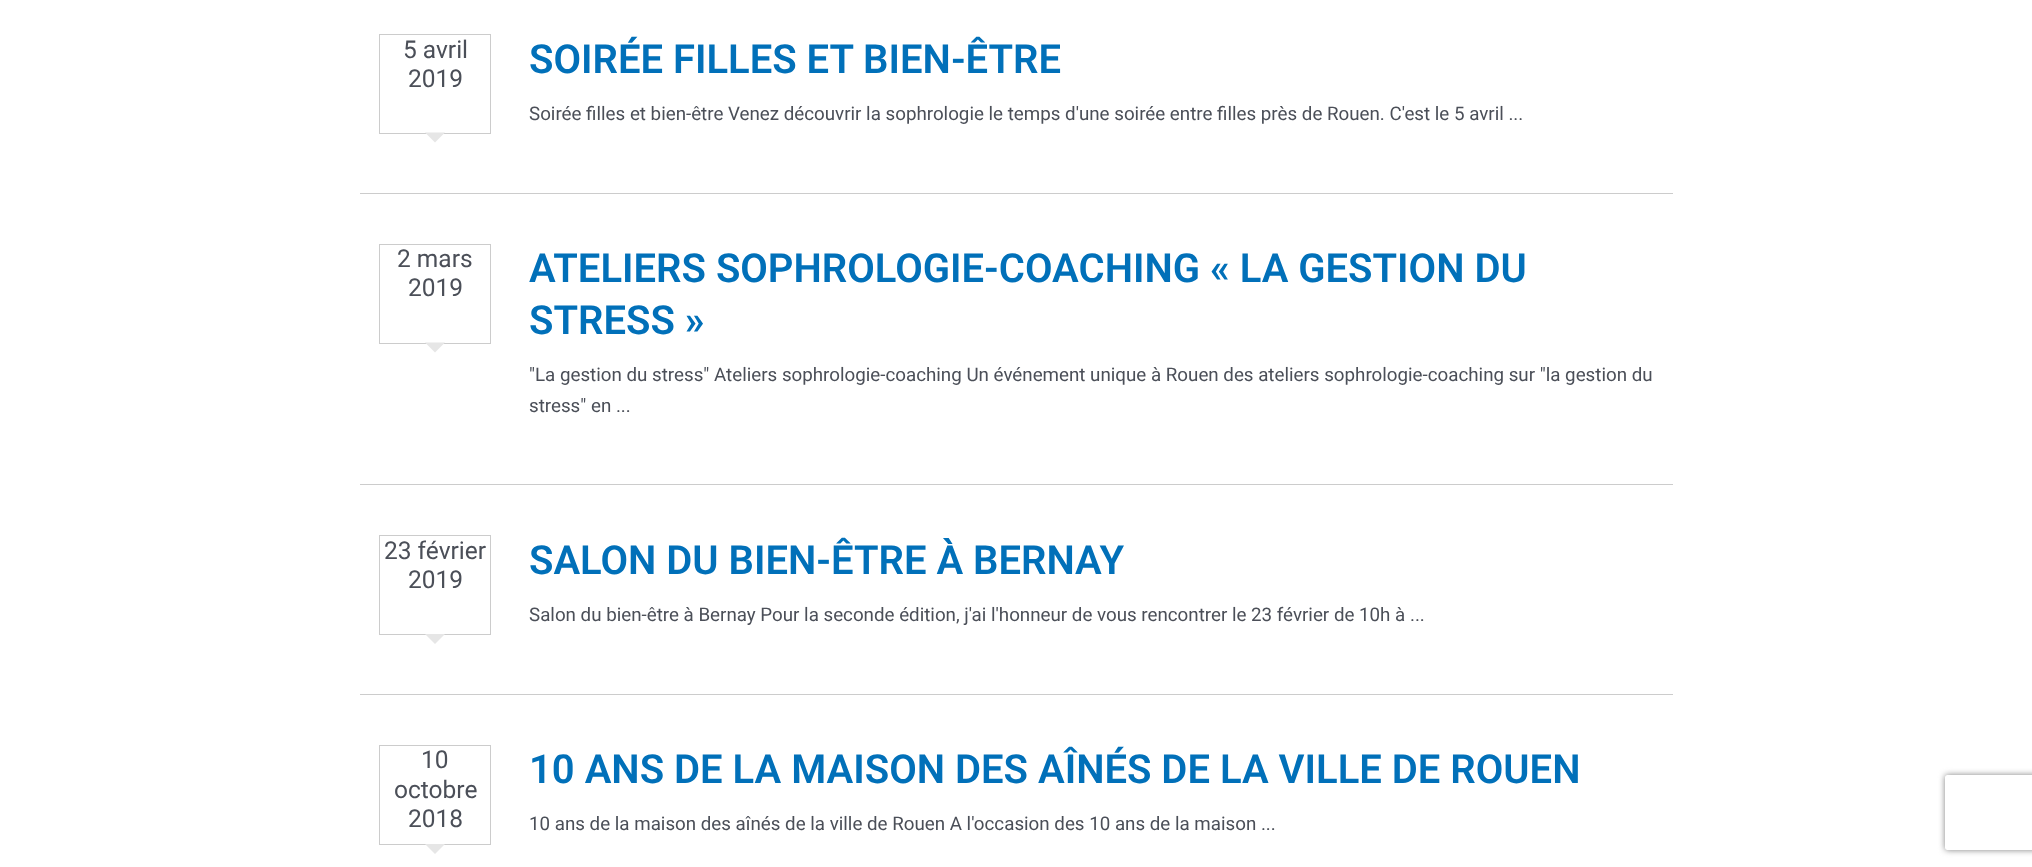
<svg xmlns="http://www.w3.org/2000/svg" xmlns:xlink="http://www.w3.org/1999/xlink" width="2032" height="867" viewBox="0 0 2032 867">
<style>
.cls-1{font:24.5px Roboto;fill:#4b4f58}
.cls-2{font:600 40px Roboto;fill:#0170b9}
.cls-3{font:18.75px Roboto;fill:#4b4f58}
</style>
<defs>
<clipPath id="clip1"><path d="M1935 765H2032V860H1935ZM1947.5 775H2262.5C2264 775 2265 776 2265 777.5V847.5C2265 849 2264 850 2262.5 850H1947.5C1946 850 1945 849 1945 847.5V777.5C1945 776 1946 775 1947.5 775Z" clip-rule="evenodd"/></clipPath>
</defs>
<rect width="100%" height="100%" fill="#ffffff"/>
<rect fill="#cccccc" x="360" y="193" width="1313" height="1"/>
<rect fill="none" stroke="#cccccc" x="379.5" y="34.5" width="111" height="99"/>
<path fill="#e6e6e6" d="M425 132.5H445L435 142.5Z"/>
<rect fill="#cccccc" x="360" y="484" width="1313" height="1"/>
<rect fill="none" stroke="#cccccc" x="379.5" y="244.5" width="111" height="99"/>
<path fill="#e6e6e6" d="M425 342.5H445L435 352.5Z"/>
<rect fill="#cccccc" x="360" y="694" width="1313" height="1"/>
<rect fill="none" stroke="#cccccc" x="379.5" y="535.5" width="111" height="99"/>
<path fill="#e6e6e6" d="M425 634H445L435 644Z"/>
<rect fill="none" stroke="#cccccc" x="379.5" y="745.5" width="111" height="99"/>
<path fill="#e6e6e6" d="M425 844H445L435 854Z"/>
<g clip-path="url(#clip1)">
<rect fill="#808080" filter="blur(3px)" x="1945" y="775" width="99" height="75" rx="2.5"/>
</g>
<text class="cls-1" x="403" y="58">5 avril</text>
<text class="cls-1" x="408" y="87">2019</text>
<text class="cls-2" x="529" y="73">SOIRÉE FILLES ET BIEN-ÊTRE</text>
<text class="cls-3" x="529" y="120">Soirée filles et bien-être Venez découvrir la sophrologie le temps d'une soirée entre filles près de Rouen. C'est le 5 avril ...</text>
<text class="cls-1" x="397" y="267">2 mars</text>
<text class="cls-1" x="408" y="296">2019</text>
<text class="cls-2"><tspan x="529" y="282">ATELIERS SOPHROLOGIE-COACHING « LA GESTION DU</tspan><tspan x="529" y="334">STRESS »</tspan></text>
<text class="cls-3"><tspan x="529" y="381">"La gestion du stress" Ateliers sophrologie-coaching Un événement unique à Rouen des ateliers sophrologie-coaching sur "la gestion du</tspan><tspan x="529" y="412">stress" en ...</tspan></text>
<text class="cls-1" x="384" y="559">23 février</text>
<text class="cls-1" x="408" y="588">2019</text>
<text class="cls-2" x="529" y="574">SALON DU BIEN-ÊTRE À BERNAY</text>
<text class="cls-3" x="529" y="621">Salon du bien-être à Bernay Pour la seconde édition, j'ai l'honneur de vous rencontrer le 23 février de 10h à ...</text>
<text class="cls-1" x="421" y="768">10</text>
<text class="cls-1" x="394" y="798">octobre</text>
<text class="cls-1" x="408" y="827">2018</text>
<text class="cls-2" x="529" y="783">10 ANS DE LA MAISON DES AÎNÉS DE LA VILLE DE ROUEN</text>
<text class="cls-3" x="529" y="830">10 ans de la maison des aînés de la ville de Rouen A l'occasion des 10 ans de la maison ...</text>
</svg>
